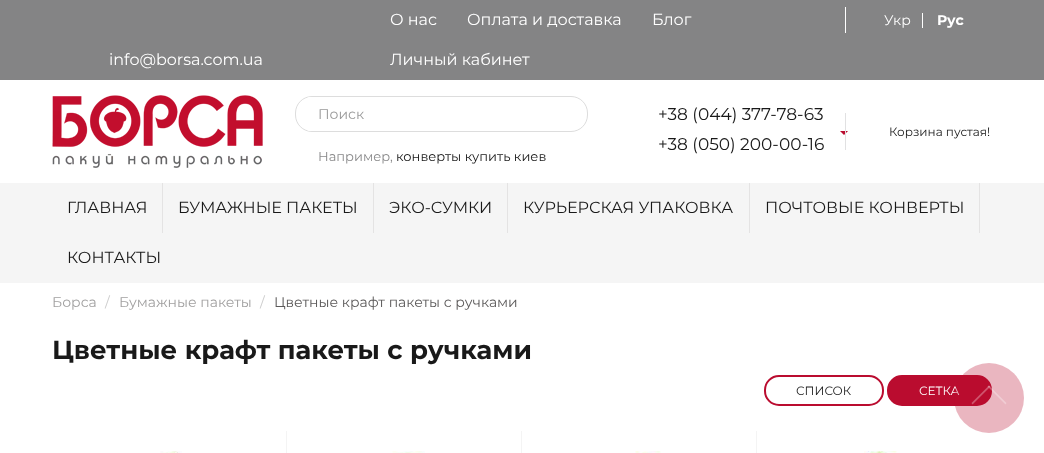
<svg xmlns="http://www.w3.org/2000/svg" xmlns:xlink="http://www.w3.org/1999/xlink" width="1044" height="453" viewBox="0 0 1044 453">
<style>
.cls-1{font:16px Montserrat;fill:#ffffff}
.cls-2{font:14px Montserrat;fill:#ffffff}
.cls-3{font:bold 14px Montserrat;fill:#ffffff}
.cls-4{font:14px Montserrat;fill:#999999}
.cls-5{font:13px Montserrat;fill:#89898a}
.cls-6{font:13px Montserrat;fill:#191919}
.cls-7{font:17px Montserrat;fill:#191919}
.cls-8{font:12px Montserrat;fill:#191919}
.cls-9{font:16px Montserrat;fill:#191919}
.cls-10{font:14px Montserrat;fill:#a1a0a0}
.cls-11{font:14px Montserrat;fill:#cccccc}
.cls-12{font:14px Montserrat;fill:#5b5959}
.cls-13{font:bold 26px Montserrat;fill:#191919}
.cls-14{font:12px Montserrat;fill:#ffffff}
</style>
<rect width="100%" height="100%" fill="#ffffff"/>
<rect fill="#848485" x="0" y="0" width="1044" height="80"/>
<rect fill="#ffffff" x="845" y="7" width="1" height="26"/>
<rect fill="#ffffff" x="922" y="13" width="1" height="15"/>
<image xlink:href="image0.png" x="52" y="95" width="211" height="73"/>
<rect fill="none" stroke="#dddddd" x="295.5" y="96.5" width="292" height="35" rx="16.5"/>
<rect fill="#ffffff" x="306" y="97" width="246" height="34" rx="4"/>
<path fill="#ba0c2f" d="M840 131H848L844 135Z"/>
<rect fill="#e1e1e2" x="845" y="113" width="1" height="37"/>
<rect fill="#f5f5f5" x="0" y="183" width="1044" height="100"/>
<rect fill="#e4e3e3" x="162" y="183" width="1" height="50"/>
<rect fill="#e4e3e3" x="373" y="183" width="1" height="50"/>
<rect fill="#e4e3e3" x="507" y="183" width="1" height="50"/>
<rect fill="#e4e3e3" x="749" y="183" width="1" height="50"/>
<rect fill="#e4e3e3" x="979" y="183" width="1" height="50"/>
<rect fill="none" stroke="#ba0c2f" stroke-width="2" x="765" y="376" width="118" height="29" rx="14"/>
<rect fill="#ba0c2f" stroke="#ba0c2f" stroke-width="2" x="888" y="376" width="103" height="29" rx="14"/>
<rect fill="#f4f4f4" x="286" y="431" width="1" height="22"/>
<image xlink:href="image1.png" x="160" y="451" width="22" height="2"/>
<rect fill="#f4f4f4" x="521" y="431" width="1" height="22"/>
<image xlink:href="image2.png" x="392" y="451" width="33" height="2"/>
<rect fill="#f4f4f4" x="756" y="431" width="1" height="22"/>
<image xlink:href="image3.png" x="635" y="451" width="26" height="2"/>
<image xlink:href="image4.png" x="864" y="451" width="33" height="2"/>
<text class="cls-1" x="390" y="25">О нас</text>
<text class="cls-1" x="467" y="25">Оплата и доставка</text>
<text class="cls-1" x="652" y="25">Блог</text>
<text class="cls-1" x="390" y="65">Личный кабинет</text>
<text class="cls-2" x="884" y="25">Укр</text>
<text class="cls-3" x="937" y="25">Рус</text>
<text class="cls-1" x="109" y="65">info@borsa.com.ua</text>
<text class="cls-4" x="318" y="119">Поиск</text>
<text class="cls-5" x="318" y="161">Например,</text>
<text class="cls-6" x="396" y="161">конверты купить киев</text>
<text class="cls-7"><tspan x="658" y="120">+38 (044) 377-78-63</tspan><tspan x="658" y="150">+38 (050) 200-00-16</tspan></text>
<text class="cls-8" x="889" y="136">Корзина пустая!</text>
<text class="cls-9" x="67" y="213">ГЛАВНАЯ</text>
<text class="cls-9" x="178" y="213">БУМАЖНЫЕ ПАКЕТЫ</text>
<text class="cls-9" x="389" y="213">ЭКО-СУМКИ</text>
<text class="cls-9" x="523" y="213">КУРЬЕРСКАЯ УПАКОВКА</text>
<text class="cls-9" x="765" y="213">ПОЧТОВЫЕ КОНВЕРТЫ</text>
<text class="cls-9" x="67" y="263">КОНТАКТЫ</text>
<text class="cls-10" x="52" y="307">Борса</text>
<text class="cls-11" x="105" y="307">/</text>
<text class="cls-10" x="119" y="307">Бумажные пакеты</text>
<text class="cls-11" x="260" y="307">/</text>
<text class="cls-12" x="274" y="307">Цветные крафт пакеты с ручками</text>
<text class="cls-13" x="52" y="359">Цветные крафт пакеты с ручками</text>
<text class="cls-8" x="796" y="395">СПИСОК</text>
<text class="cls-14" x="919" y="395">СЕТКА</text>
<circle fill="#ba0c2f" fill-opacity="0.3" cx="989" cy="398" r="35"/>
<path fill="#cf556d" d="M972.5 404.5L971.5 403L989 385.5L990.5 386.5Z"/>
<path fill="#ffffff" fill-opacity="0.3" d="M1005.5 404.5L987.5 386.5L989 385.5L1006.5 403Z"/>
</svg>
